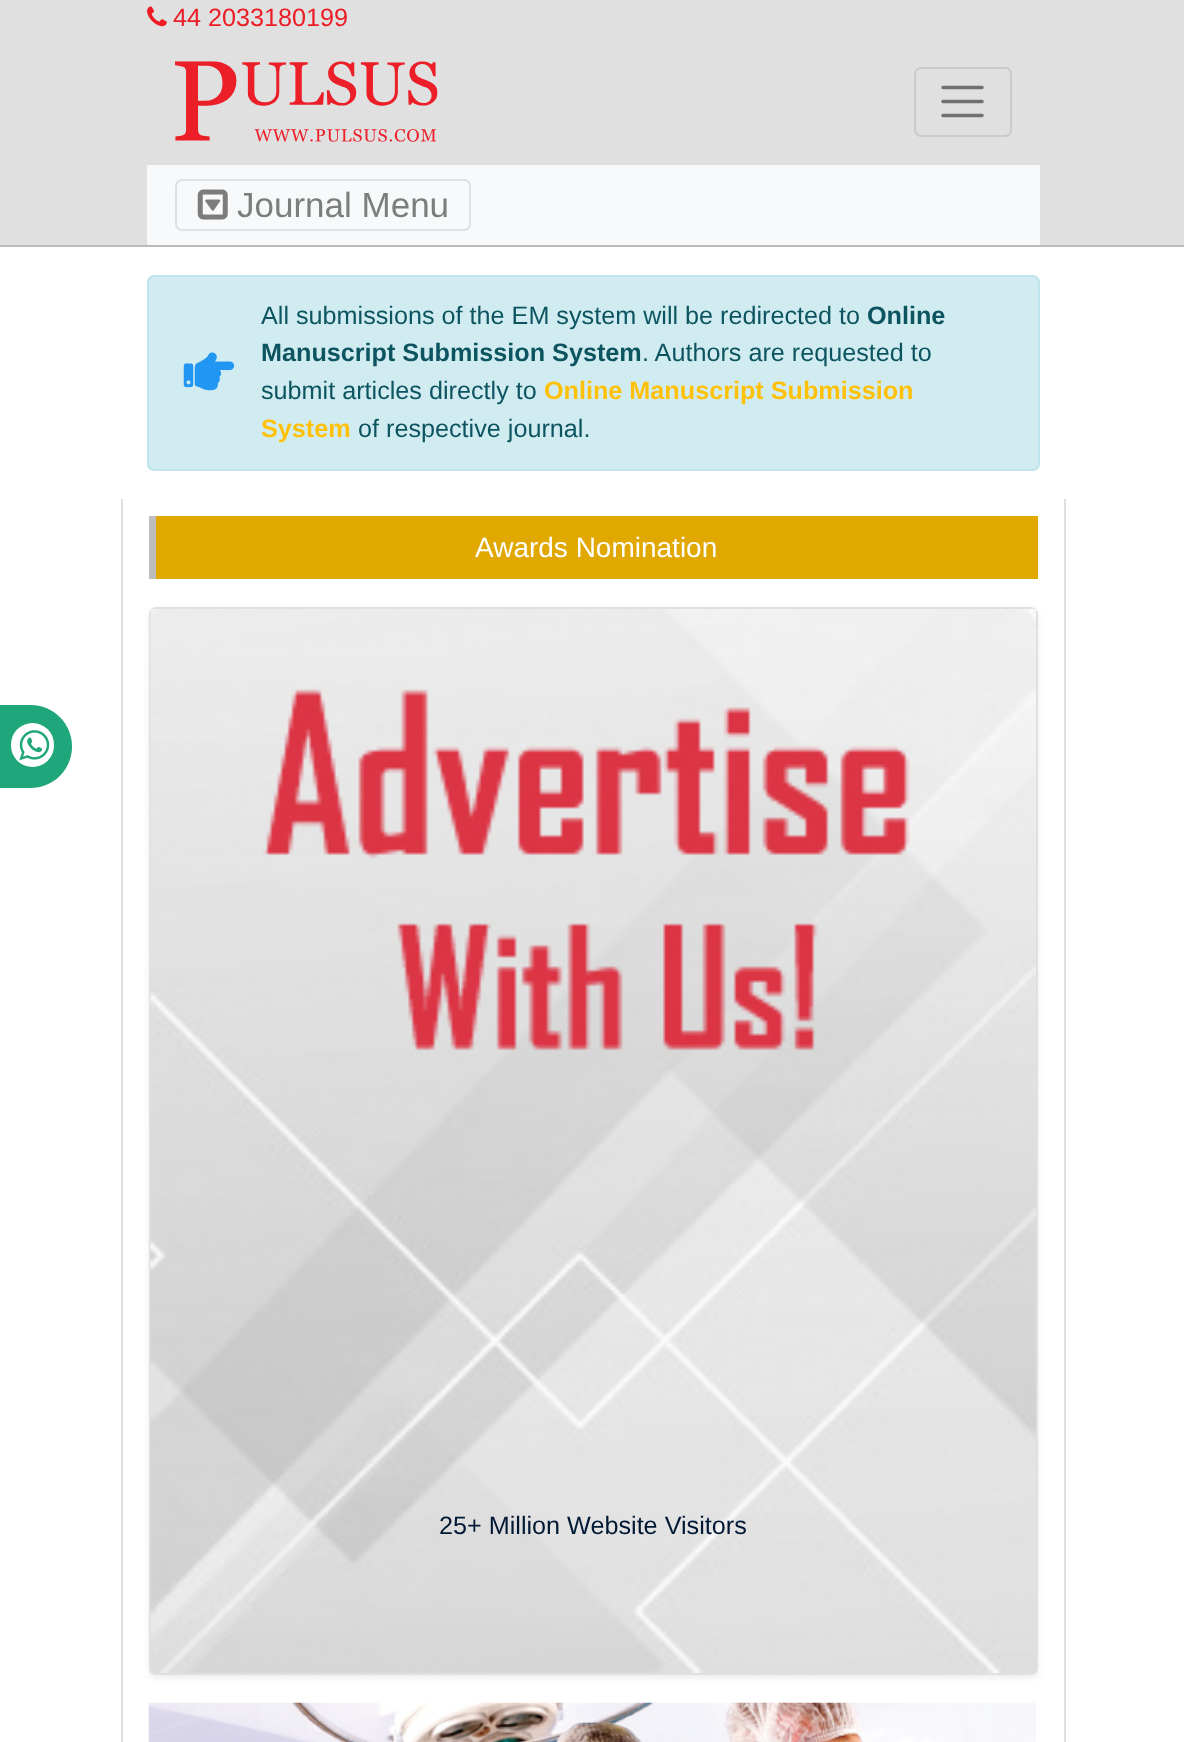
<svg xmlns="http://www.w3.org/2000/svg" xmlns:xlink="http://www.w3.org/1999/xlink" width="1184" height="1742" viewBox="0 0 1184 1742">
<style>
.cls-1{font:25.2px Liberation Sans;fill:#ed1c24}
.cls-2{font:35px Liberation Sans;fill:#7c7d7d}
.cls-3{font:25.2px Liberation Sans;fill:#0c5460}
.cls-4{font:bold 25.2px Liberation Sans;fill:#0c5460}
.cls-5{font:bold 25.2px Liberation Sans;fill:#ffc107}
.cls-6{font:28px Liberation Sans;fill:#ffffff}
.cls-7{font:25.2px Liberation Sans;fill:#001834}
</style>
<rect width="100%" height="100%" fill="#ffffff"/>
<rect fill="#e0e0e0" x="0" y="0" width="1184" height="245"/>
<rect fill="#bbbbbb" x="0" y="245" width="1184" height="2"/>
<image xlink:href="image0.png" x="147" y="6" width="20" height="21"/>
<image xlink:href="image1.png" x="175" y="61" width="263" height="81"/>
<rect fill="none" stroke="#cacaca" stroke-width="2" x="915" y="68" width="96" height="68" rx="6"/>
<path fill="none" stroke="#707070" stroke-width="3.5" stroke-linecap="round" d="M943 87.5H982M943 101.5H982M943 115.5H982"/>
<rect fill="#f8f9fa" x="147" y="165" width="893" height="80"/>
<rect fill="none" stroke="#dfe0e1" stroke-width="2" x="176" y="180" width="294" height="50" rx="6"/>
<image xlink:href="image2.png" x="197" y="189" width="31" height="31"/>
<path fill="#1fa67a" d="M-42 705H30.5C53.5 705 72 723.5 72 746.5C72 769.5 53.5 788 30.5 788H-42Z"/>
<rect fill="#ffffff" x="11" y="723" width="43" height="44" rx="21.5"/>
<image xlink:href="image3.png" x="19" y="730" width="31" height="31"/>
<rect fill="#d1ecf1" stroke="#bee5eb" stroke-width="2" x="148" y="276" width="891" height="194" rx="6"/>
<image xlink:href="image4.png" x="183" y="352" width="52" height="39"/>
<rect fill="#e0e0e0" x="1064" y="499" width="2" height="1243"/>
<rect fill="#e0e0e0" x="121" y="499" width="2" height="1243"/>
<rect fill="#e0a800" x="156" y="516" width="882" height="63"/>
<rect fill="#bdbdbd" x="149" y="516" width="7" height="63"/>
<rect fill="#000000" fill-opacity="0.07" filter="blur(3.5px)" x="149" y="611" width="889" height="1067" rx="7"/>
<rect fill="#ffffff" x="149" y="607" width="889" height="1068" rx="7"/>
<rect fill="none" stroke="#000000" stroke-opacity="0.12" stroke-width="2" x="150" y="608" width="887" height="1066" rx="6"/>
<image xlink:href="image5.png" x="150" y="609" width="886" height="1064"/>
<image xlink:href="image6.png" x="148" y="1702" width="888" height="40"/>
<text class="cls-1" x="173" y="26">44 2033180199</text>
<text class="cls-2" x="237" y="217">Journal Menu</text>
<text class="cls-3" x="261" y="324">All submissions of the EM system will be redirected to</text>
<text class="cls-4" x="867" y="324">Online</text>
<text class="cls-4" x="261" y="361">Manuscript Submission System</text>
<text class="cls-3" x="642" y="361">. Authors are requested to</text>
<text class="cls-3" x="261" y="399">submit articles directly to</text>
<text class="cls-5" x="544" y="399">Online Manuscript Submission</text>
<text class="cls-5" x="261" y="437">System</text>
<text class="cls-3" x="358" y="437">of respective journal.</text>
<text class="cls-6" x="475" y="557">Awards Nomination</text>
<text class="cls-7" x="439" y="1534">25+ Million Website Visitors</text>
</svg>
